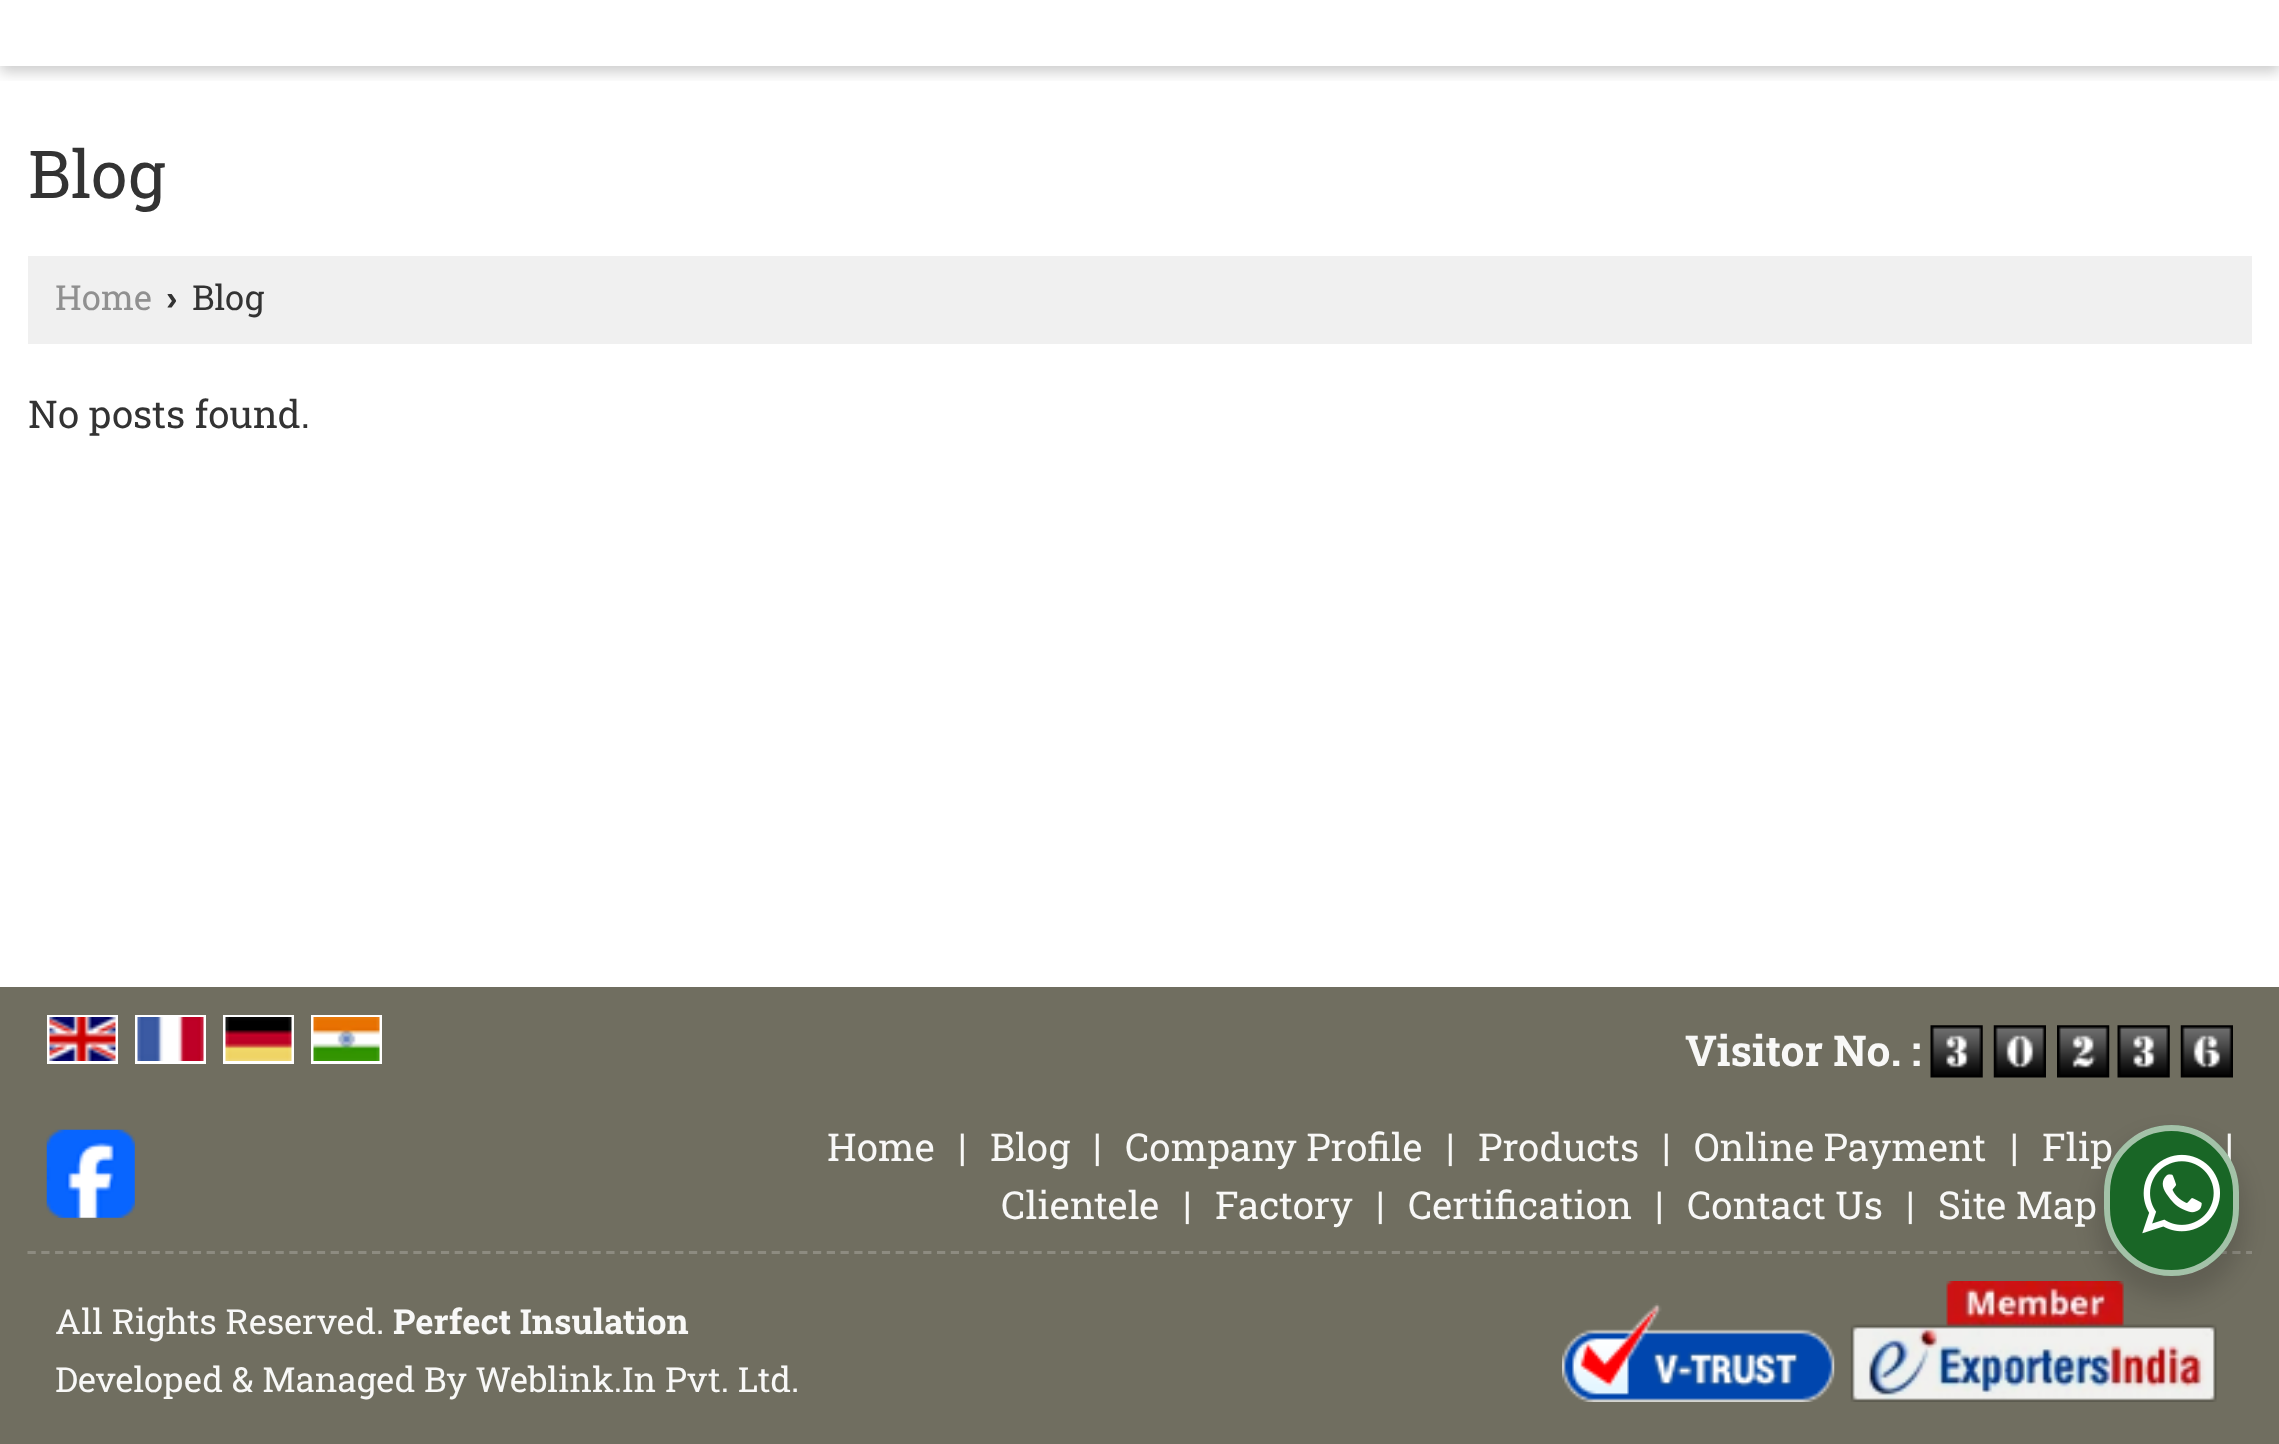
<svg xmlns="http://www.w3.org/2000/svg" xmlns:xlink="http://www.w3.org/1999/xlink" width="2279" height="1444" viewBox="0 0 2279 1444">
<style>
.cls-1{font:66px Roboto Slab;fill:#333333}
.cls-2{font:34.65px Roboto Slab;fill:#909090}
.cls-3{font:bold 34.65px Liberation Sans;fill:#333333}
.cls-4{font:34.65px Roboto Slab;fill:#333333}
.cls-5{font:38.5px Roboto Slab;fill:#333333}
.cls-6{font:bold 42.5px Roboto Slab;fill:#f8f8f7}
.cls-7{font:38.5px Roboto Slab;fill:#f8f8f7}
.cls-8{font:34.65px Roboto Slab;fill:#f8f8f7}
.cls-9{font:bold 34.65px Roboto Slab;fill:#f8f8f7}
</style>
<defs>
<clipPath id="clip1"><rect x="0" y="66" width="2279" height="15"/></clipPath>
</defs>
<rect width="100%" height="100%" fill="#ffffff"/>
<g clip-path="url(#clip1)">
<rect fill="#000000" fill-opacity="0.2" filter="blur(7px)" x="0" y="-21" width="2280" height="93"/>
</g>
<rect fill="#f0f0f0" x="28" y="256" width="2224" height="88"/>
<rect fill="#706e60" x="0" y="987" width="2279" height="457"/>
<rect fill="none" stroke="#ffffff" stroke-width="3" x="48.5" y="1016.5" width="68" height="46"/>
<rect fill="none" stroke="#ffffff" stroke-width="3" x="136.5" y="1016.5" width="68" height="46"/>
<rect fill="none" stroke="#ffffff" stroke-width="3" x="224.5" y="1016.5" width="68" height="46"/>
<rect fill="none" stroke="#ffffff" stroke-width="3" x="312.5" y="1016.5" width="68" height="46"/>
<image xlink:href="image0.png" x="49" y="1017" width="67" height="44"/>
<image xlink:href="image1.png" x="137" y="1017" width="67" height="44"/>
<image xlink:href="image2.png" x="225" y="1017" width="67" height="44"/>
<image xlink:href="image3.png" x="313" y="1017" width="67" height="44"/>
<image xlink:href="image4.png" x="1930" y="1025" width="53" height="53"/>
<image xlink:href="image5.png" x="1993" y="1025" width="53" height="53"/>
<image xlink:href="image6.png" x="2057" y="1025" width="53" height="53"/>
<image xlink:href="image4.png" x="2117" y="1025" width="53" height="53"/>
<image xlink:href="image7.png" x="2180" y="1025" width="53" height="53"/>
<image xlink:href="image8.png" x="46" y="1129" width="89" height="89"/>
<path fill="none" stroke="#8d8b80" stroke-width="2.8" stroke-dasharray="8.25 5.53" d="M27.5 1252.5H2252"/>
<image xlink:href="image9.png" x="1562" y="1303" width="273" height="99"/>
<image xlink:href="image10.png" x="1850" y="1281" width="367" height="121"/>
<rect fill="#000000" fill-opacity="0.14" filter="blur(11px)" x="2098" y="1136" width="146" height="162" rx="73"/>
<text class="cls-1" x="28" y="198">Blog</text>
<text class="cls-2" x="55" y="310">Home</text>
<text class="cls-3" x="166" y="310">›</text>
<text class="cls-4" x="192" y="310">Blog</text>
<text class="cls-5" x="28" y="428">No posts found.</text>
<text class="cls-6" x="1685" y="1066">Visitor No. :</text>
<text class="cls-7" x="827" y="1161">Home</text>
<text class="cls-7" x="958" y="1161">|</text>
<text class="cls-7" x="990" y="1161">Blog</text>
<text class="cls-7" x="1093" y="1161">|</text>
<text class="cls-7" x="1125" y="1161">Company Profile</text>
<text class="cls-7" x="1446" y="1161">|</text>
<text class="cls-7" x="1478" y="1161">Products</text>
<text class="cls-7" x="1662" y="1161">|</text>
<text class="cls-7" x="1694" y="1161">Online Payment</text>
<text class="cls-7" x="2010" y="1161">|</text>
<text class="cls-7" x="2042" y="1161">Flip</text>
<text class="cls-7" x="2225" y="1161">|</text>
<text class="cls-7" x="1001" y="1219">Clientele</text>
<text class="cls-7" x="1183" y="1219">|</text>
<text class="cls-7" x="1215" y="1219">Factory</text>
<text class="cls-7" x="1376" y="1219">|</text>
<text class="cls-7" x="1408" y="1219">Certification</text>
<text class="cls-7" x="1655" y="1219">|</text>
<text class="cls-7" x="1687" y="1219">Contact Us</text>
<text class="cls-7" x="1906" y="1219">|</text>
<text class="cls-7" x="1938" y="1219">Site Map</text>
<text class="cls-8" x="55" y="1334">All Rights Reserved.</text>
<text class="cls-9" x="393" y="1334">Perfect Insulation</text>
<text class="cls-8" x="55" y="1392">Developed &amp; Managed By Weblink.In Pvt. Ltd.</text>
<rect fill="#196626" x="2104" y="1125" width="135" height="151" rx="67.5"/>
<rect fill="none" stroke="#ffffff" stroke-opacity="0.6" stroke-width="6" x="2107" y="1128" width="129" height="145" rx="64.5"/>
<image xlink:href="image11.png" x="2142" y="1154" width="78" height="80"/>
</svg>
